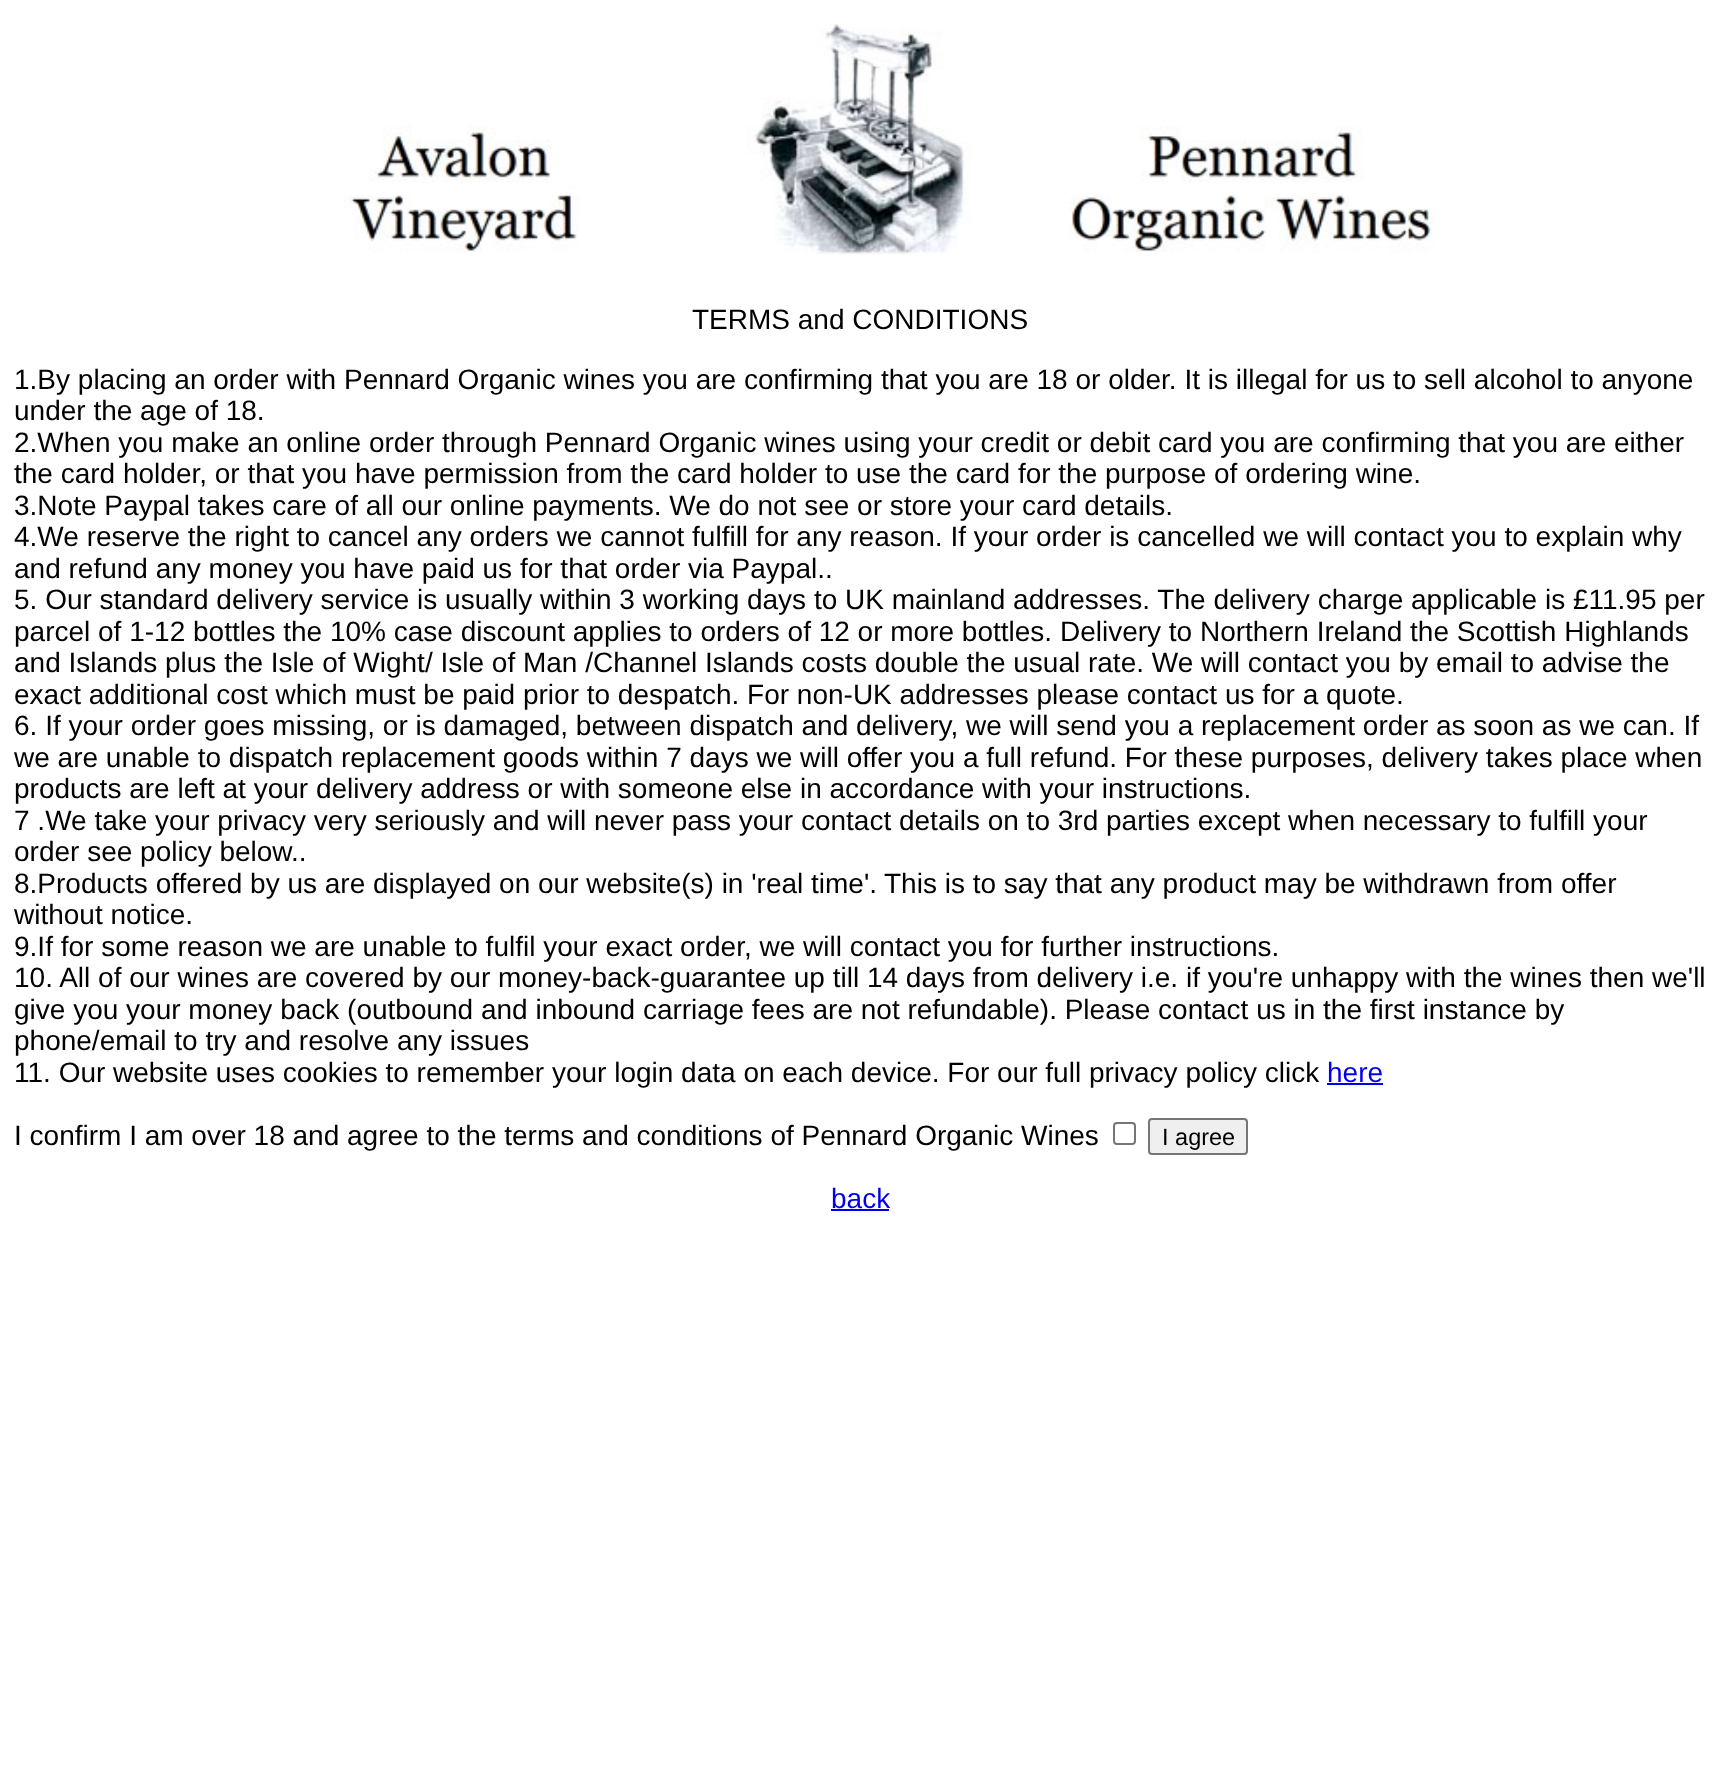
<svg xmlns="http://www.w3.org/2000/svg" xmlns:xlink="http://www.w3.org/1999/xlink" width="1720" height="1774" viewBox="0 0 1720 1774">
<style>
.cls-1{font:28px Liberation Sans;fill:#000000}
.cls-2{font:28px Liberation Sans;fill:#0000ee}
.cls-3{font:23.5px Liberation Sans;fill:#000000}
</style>
<rect width="100%" height="100%" fill="#ffffff"/>
<image xlink:href="image0.png" x="344" y="24" width="1090" height="231"/>
<rect fill="#0000ee" x="1327" y="1083" width="56" height="2"/>
<rect fill="none" stroke="#767676" stroke-width="2" x="1114" y="1123" width="21" height="21" rx="3"/>
<rect fill="#efefef" stroke="#767676" stroke-width="2" x="1149" y="1119" width="98" height="35" rx="3"/>
<rect fill="#0000ee" x="831" y="1209" width="58" height="2"/>
<text class="cls-1" x="692" y="329">TERMS and CONDITIONS</text>
<text class="cls-1"><tspan x="14" y="389">1.By placing an order with Pennard Organic wines you are confirming that you are 18 or older. It is illegal for us to sell alcohol to anyone</tspan><tspan x="14" y="420">under the age of 18.</tspan><tspan x="14" y="452">2.When you make an online order through Pennard Organic wines using your credit or debit card you are confirming that you are either</tspan><tspan x="14" y="483">the card holder, or that you have permission from the card holder to use the card for the purpose of ordering wine.</tspan><tspan x="14" y="515">3.Note Paypal takes care of all our online payments. We do not see or store your card details.</tspan><tspan x="14" y="546">4.We reserve the right to cancel any orders we cannot fulfill for any reason. If your order is cancelled we will contact you to explain why</tspan><tspan x="14" y="578">and refund any money you have paid us for that order via Paypal..</tspan><tspan x="14" y="609">5. Our standard delivery service is usually within 3 working days to UK mainland addresses. The delivery charge applicable is £11.95 per</tspan><tspan x="14" y="641">parcel of 1-12 bottles the 10% case discount applies to orders of 12 or more bottles. Delivery to Northern Ireland the Scottish Highlands</tspan><tspan x="14" y="672">and Islands plus the Isle of Wight/ Isle of Man /Channel Islands costs double the usual rate. We will contact you by email to advise the</tspan><tspan x="14" y="704">exact additional cost which must be paid prior to despatch. For non-UK addresses please contact us for a quote.</tspan><tspan x="14" y="735">6. If your order goes missing, or is damaged, between dispatch and delivery, we will send you a replacement order as soon as we can. If</tspan><tspan x="14" y="767">we are unable to dispatch replacement goods within 7 days we will offer you a full refund. For these purposes, delivery takes place when</tspan><tspan x="14" y="798">products are left at your delivery address or with someone else in accordance with your instructions.</tspan><tspan x="14" y="830">7 .We take your privacy very seriously and will never pass your contact details on to 3rd parties except when necessary to fulfill your</tspan><tspan x="14" y="861">order see policy below..</tspan><tspan x="14" y="893">8.Products offered by us are displayed on our website(s) in 'real time'.</tspan></text>
<text class="cls-1" x="884" y="893">This is to say that any product may be withdrawn from offer</text>
<text class="cls-1"><tspan x="14" y="924">without notice.</tspan><tspan x="14" y="956">9.If for some reason we are unable to fulfil your exact order, we will contact you for further instructions.</tspan><tspan x="14" y="987">10. All of our wines are covered by our money-back-guarantee up till 14 days from delivery i.e. if you're unhappy with the wines then we'll</tspan><tspan x="14" y="1019">give you your money back (outbound and inbound carriage fees are not refundable). Please contact us in the first instance by</tspan><tspan x="14" y="1050">phone/email to try and resolve any issues</tspan><tspan x="14" y="1082">11. Our website uses cookies to remember your login data on each device. For our full privacy policy click</tspan></text>
<text class="cls-2" x="1327" y="1082">here</text>
<text class="cls-1" x="14" y="1145">I confirm I am over 18 and agree to the terms and conditions of Pennard Organic Wines</text>
<text class="cls-3" x="1162" y="1145">I agree</text>
<text class="cls-2" x="831" y="1208">back</text>
</svg>
